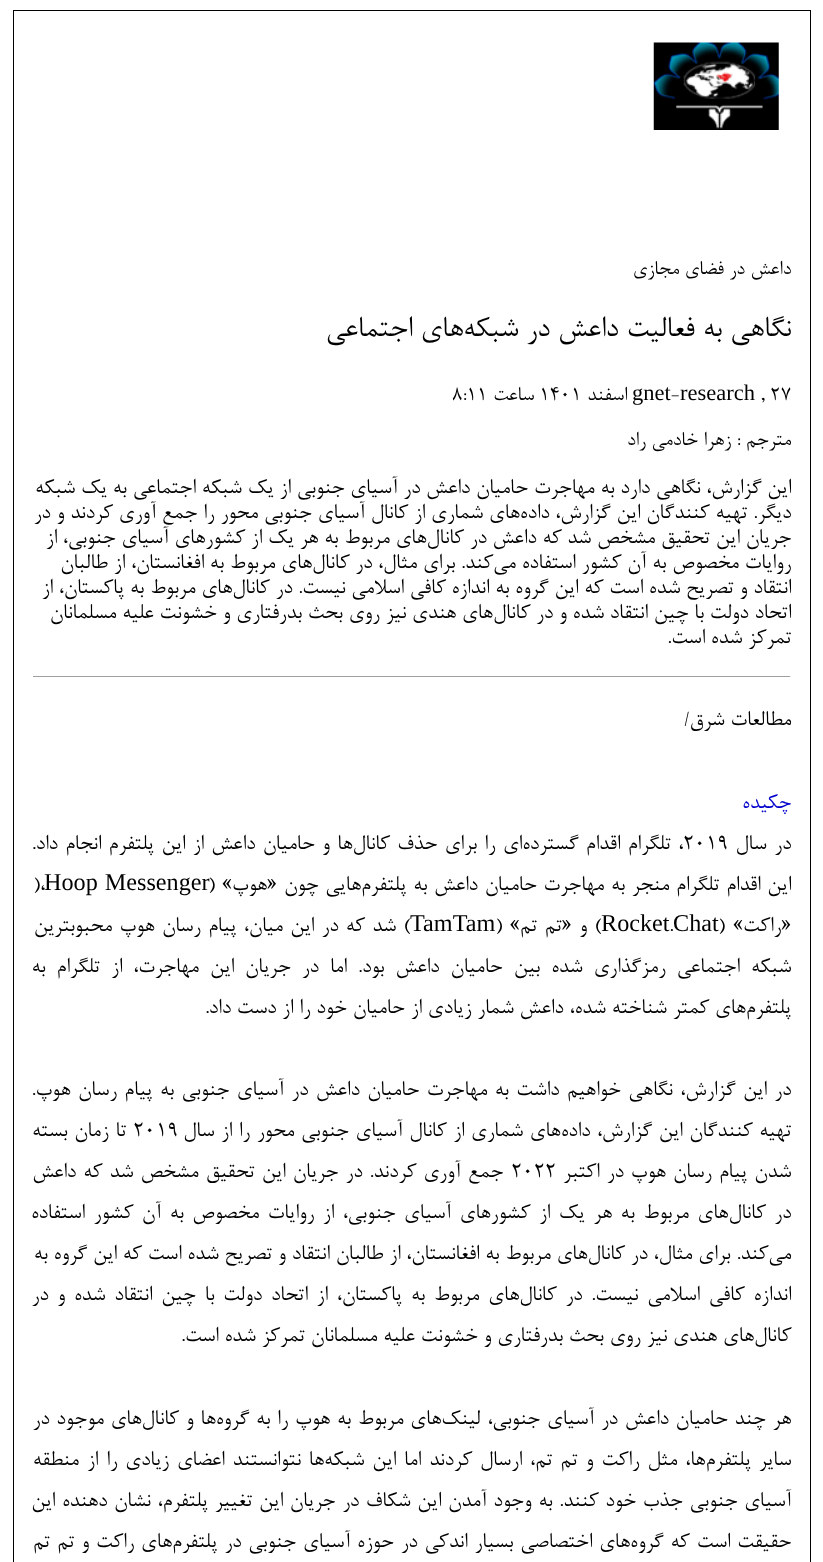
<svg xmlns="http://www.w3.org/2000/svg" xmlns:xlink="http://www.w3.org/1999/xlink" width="823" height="1562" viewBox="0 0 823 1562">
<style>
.cls-1{font:22.5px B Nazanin;direction:rtl;fill:#000000}
.cls-2{font:33.3px B Nazanin;direction:rtl;fill:#000000}
.cls-3{font:22.5px B Nazanin;fill:#000000}
.cls-4{font:22.5px Liberation Serif;fill:#000000}
.cls-5{font:24.2px B Nazanin;direction:rtl;fill:#000000}
.cls-6{font:24.2px B Nazanin;direction:rtl;fill:#0000cd}
.cls-7{font:24.2px B Nazanin;fill:#000000}
.cls-8{font:24.2px Liberation Serif;fill:#000000}
</style>
<rect width="100%" height="100%" fill="#ffffff"/>
<rect fill="none" stroke="#000000" x="13.5" y="10.5" width="797" height="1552"/>
<image xlink:href="image0.png" x="653" y="42" width="126" height="88"/>
<rect fill="#9f9f9f" x="33" y="676" width="758" height="1"/>
<rect fill="#eeeeee" x="790" y="676" width="1" height="1"/>
<text class="cls-1" x="791" y="274">داعش در فضای مجازی</text>
<text class="cls-2" x="791" y="336">نگاهی به فعالیت داعش در شبکه‌های اجتماعی</text>
<text class="cls-3" x="760" y="400">, 27</text>
<text class="cls-4" x="680" y="400">research</text>
<text class="cls-4" x="632" y="400">gnet</text>
<text class="cls-3" x="671" y="400">-</text>
<text class="cls-1" x="627" y="400">اسفند</text>
<text class="cls-3" x="539" y="400">1401</text>
<text class="cls-1" x="534" y="400">ساعت</text>
<text class="cls-3" x="452" y="400">8:11</text>
<text class="cls-1" x="791" y="445">مترجم : زهرا خادمی راد</text>
<text class="cls-5"><tspan x="791" y="493">این گزارش، نگاهی دارد به مهاجرت حامیان داعش در آسیای جنوبی از یک شبکه اجتماعی به یک شبکه</tspan><tspan x="791" y="518">دیگر. تهیه کنندگان این گزارش، داده‌های شماری از کانال آسیای جنوبی محور را جمع آوری کردند و در</tspan><tspan x="791" y="543">جریان این تحقیق مشخص شد که داعش در کانال‌های مربوط به هر یک از کشورهای آسیای جنوبی، از</tspan><tspan x="791" y="568">روایات مخصوص به آن کشور استفاده می‌کند. برای مثال، در کانال‌های مربوط به افغانستان، از طالبان</tspan><tspan x="791" y="593">انتقاد و تصریح شده است که این گروه به اندازه کافی اسلامی نیست. در کانال‌های مربوط به پاکستان، از</tspan><tspan x="791" y="618">اتحاد دولت با چین انتقاد شده و در کانال‌های هندی نیز روی بحث بدرفتاری و خشونت علیه مسلمانان</tspan><tspan x="791" y="643">تمرکز شده است.</tspan></text>
<text class="cls-5" x="791" y="725">مطالعات شرق/</text>
<text class="cls-6" x="791" y="808">چکیده</text>
<text class="cls-5" x="791" y="849" word-spacing="2">در سال</text>
<text class="cls-7" x="683" y="849">2019</text>
<text class="cls-5" x="683" y="849" word-spacing="1.5">، تلگرام اقدام گسترده‌ای را برای حذف کانال‌ها و حامیان داعش از این پلتفرم انجام داد.</text>
<text class="cls-5" x="791" y="890" word-spacing="0.9">این اقدام تلگرام منجر به مهاجرت حامیان داعش به پلتفرم‌هایی چون «هوپ» (</text>
<text class="cls-7" x="33" y="890">)،</text>
<text class="cls-8" x="44" y="890" word-spacing="1">Hoop Messenger</text>
<text class="cls-5" x="791" y="931" word-spacing="2">«راکت» (</text>
<text class="cls-8" x="673" y="931">Chat</text>
<text class="cls-7" x="669" y="931">.</text>
<text class="cls-8" x="601" y="931">Rocket</text>
<text class="cls-5" x="601" y="931" word-spacing="1.5">) و «تم تم» (</text>
<text class="cls-8" x="410" y="931">TamTam</text>
<text class="cls-5" x="410" y="931" word-spacing="1.5">) شد که در این میان، پیام رسان هوپ محبوبترین</text>
<text class="cls-5"><tspan x="791" y="972" word-spacing="5.25">شبکه اجتماعی رمزگذاری شده بین حامیان داعش بود. اما در جریان این مهاجرت، از تلگرام به</tspan><tspan x="791" y="1013">پلتفرم‌های کمتر شناخته شده، داعش شمار زیادی از حامیان خود را از دست داد.</tspan></text>
<text class="cls-5"><tspan x="791" y="1095" word-spacing="1.6">در این گزارش، نگاهی خواهیم داشت به مهاجرت حامیان داعش در آسیای جنوبی به پیام رسان هوپ.</tspan><tspan x="791" y="1136" word-spacing="0.75">تهیه کنندگان این گزارش، داده‌های شماری از کانال آسیای جنوبی محور را از سال</tspan></text>
<text class="cls-7" x="133" y="1136">2019</text>
<text class="cls-5" x="126" y="1136" word-spacing="1">تا زمان بسته</text>
<text class="cls-5" x="791" y="1177" word-spacing="1.25">شدن پیام رسان هوپ در اکتبر</text>
<text class="cls-7" x="511" y="1177">2022</text>
<text class="cls-5" x="503" y="1177" word-spacing="1.25">جمع آوری کردند. در جریان این تحقیق مشخص شد که داعش</text>
<text class="cls-5"><tspan x="791" y="1218" word-spacing="2.75">در کانال‌های مربوط به هر یک از کشورهای آسیای جنوبی، از روایات مخصوص به آن کشور استفاده</tspan><tspan x="791" y="1259">می‌کند. برای مثال، در کانال‌های مربوط به افغانستان، از طالبان انتقاد و تصریح شده است که این گروه به</tspan><tspan x="791" y="1300" word-spacing="3">اندازه کافی اسلامی نیست. در کانال‌های مربوط به پاکستان، از اتحاد دولت با چین انتقاد شده و در</tspan><tspan x="791" y="1341">کانال‌های هندی نیز روی بحث بدرفتاری و خشونت علیه مسلمانان تمرکز شده است.</tspan></text>
<text class="cls-5"><tspan x="791" y="1424" word-spacing="1">هر چند حامیان داعش در آسیای جنوبی، لینک‌های مربوط به هوپ را به گروه‌ها و کانال‌های موجود در</tspan><tspan x="791" y="1465" word-spacing="2.1">سایر پلتفرم‌ها، مثل راکت و تم تم، ارسال کردند اما این شبکه‌ها نتوانستند اعضای زیادی را از منطقه</tspan><tspan x="791" y="1506" word-spacing="0.9">آسیای جنوبی جذب خود کنند. به وجود آمدن این شکاف در جریان این تغییر پلتفرم، نشان دهنده این</tspan><tspan x="791" y="1547" word-spacing="1.1">حقیقت است که گروه‌های اختصاصی بسیار اندکی در حوزه آسیای جنوبی در پلتفرم‌های راکت و تم تم</tspan></text>
</svg>
